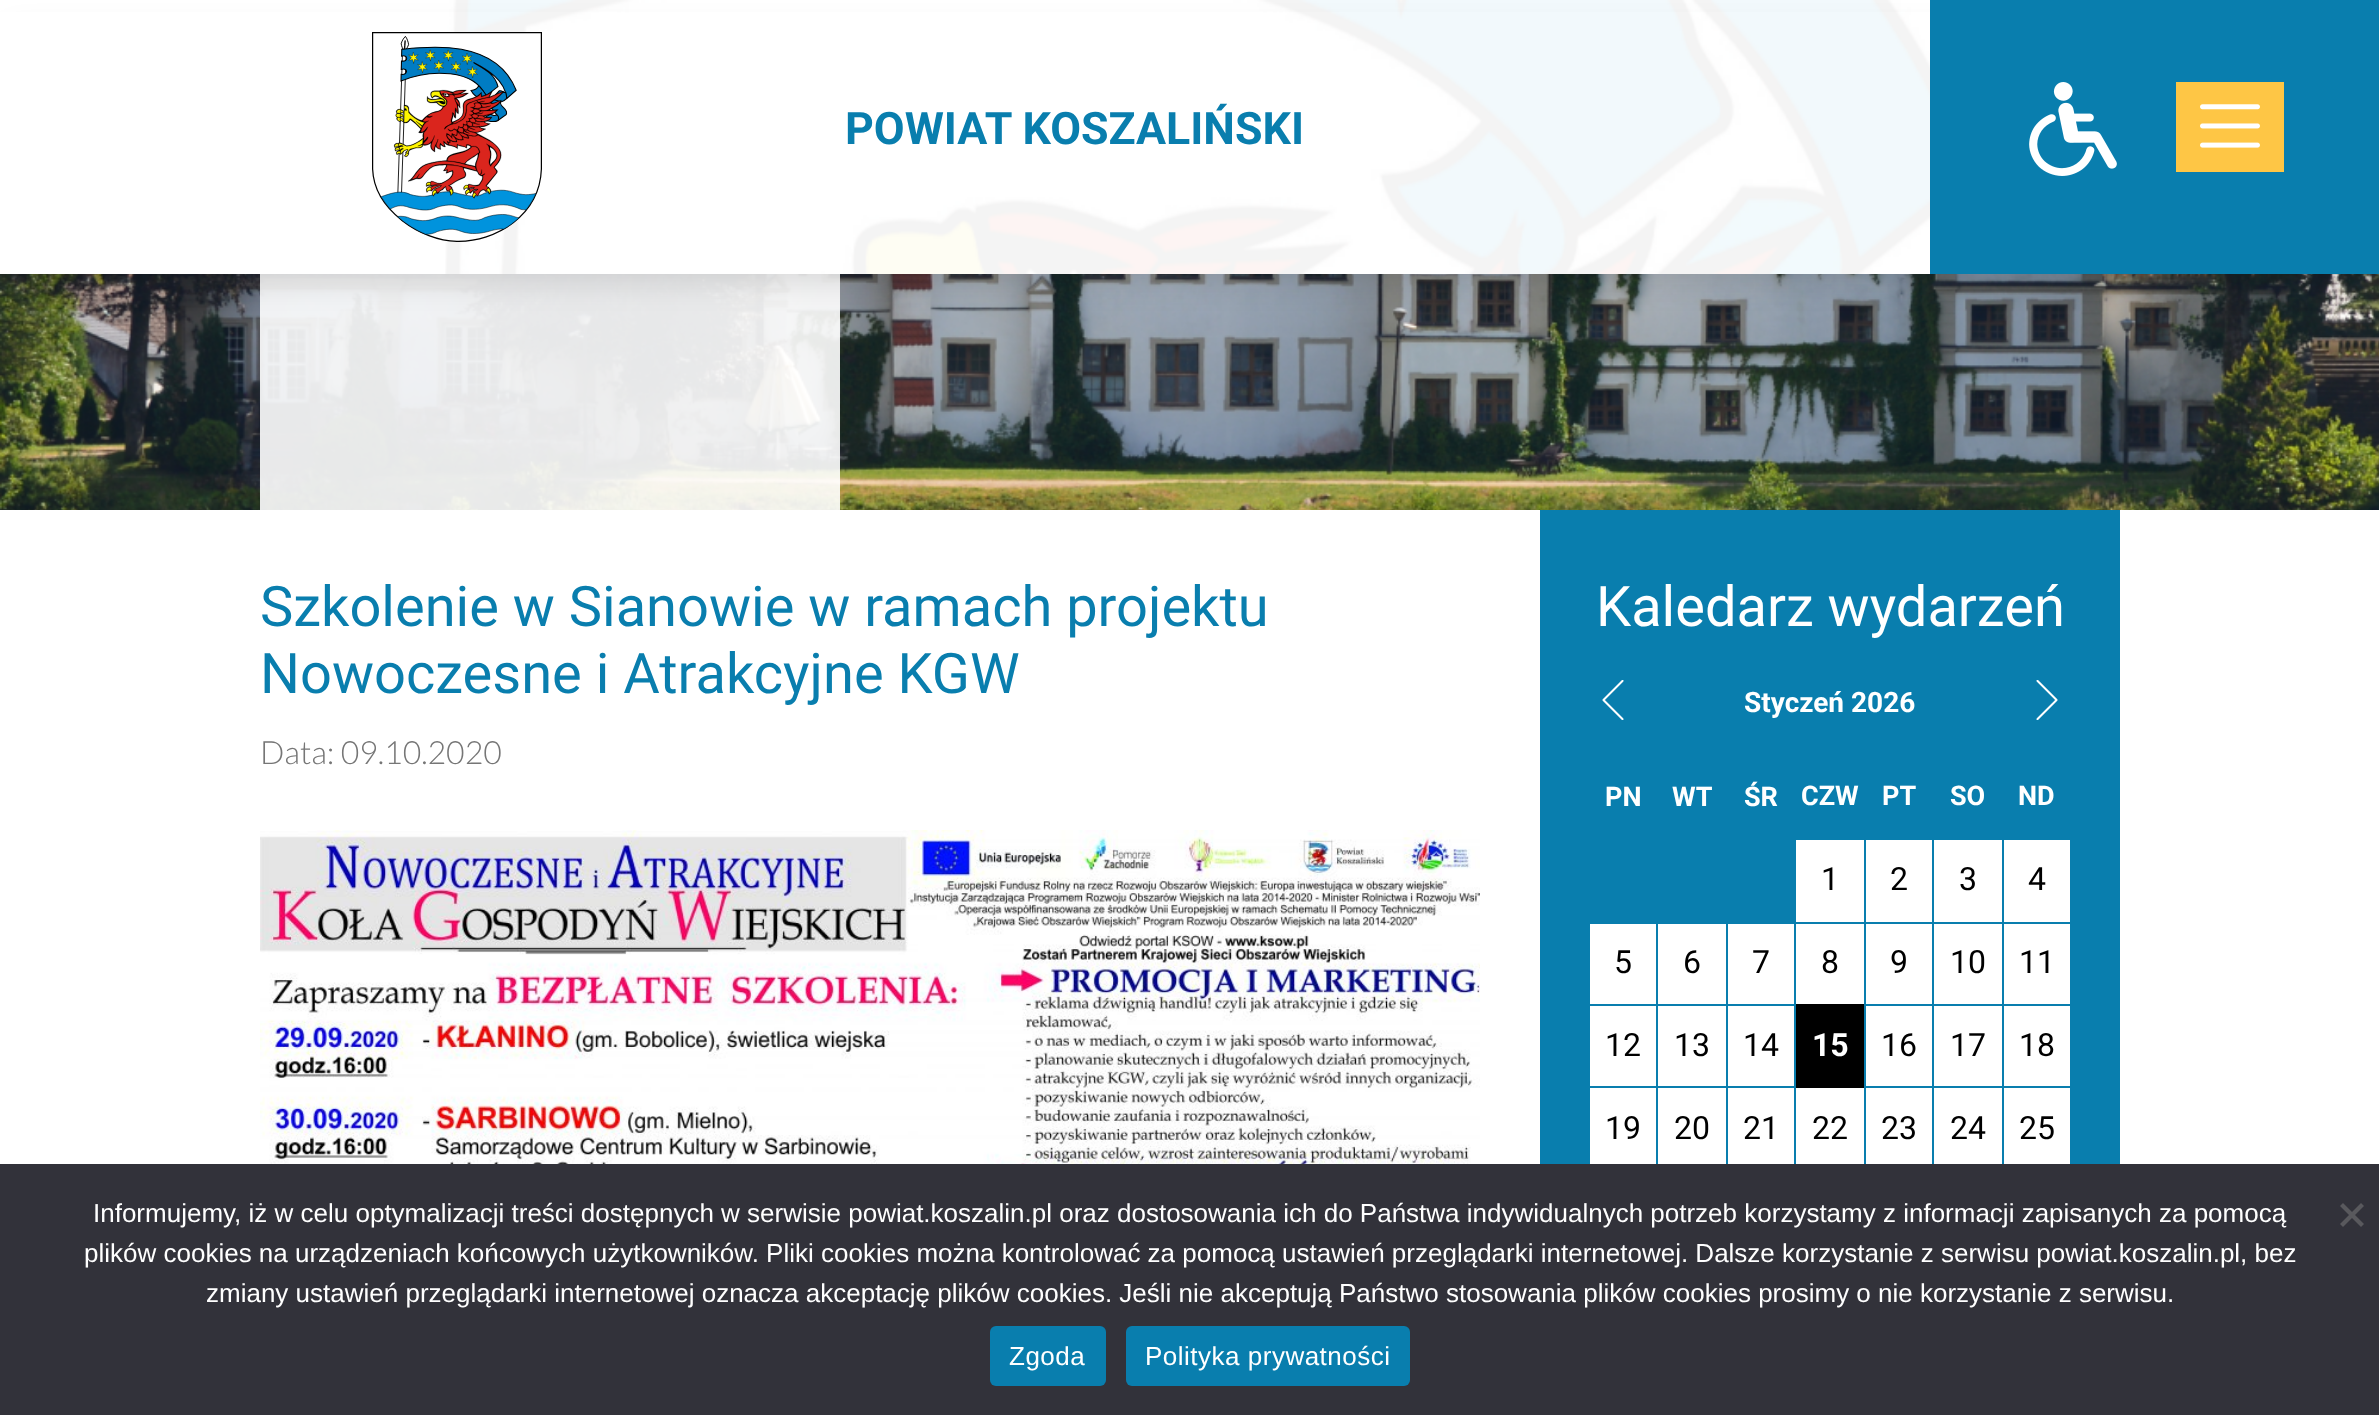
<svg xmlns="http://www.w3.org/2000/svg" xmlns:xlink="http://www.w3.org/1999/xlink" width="2379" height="1415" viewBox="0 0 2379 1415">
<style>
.cls-1{font:bold 44.75px Roboto;fill:#097eae}
.cls-2{font:56px Roboto;fill:#097eae}
.cls-3{font:300 32px Lato;fill:#767676}
.cls-4{font:56px Roboto;fill:#ffffff}
.cls-5{font:bold 28px Roboto;fill:#ffffff}
.cls-6{font:bold 27px Roboto;fill:#ffffff}
.cls-7{font:32px Roboto;fill:#000000}
.cls-8{font:bold 32px Roboto;fill:#ffffff}
.cls-9{font:26px Liberation Sans;fill:#ffffff}
.cls-10{font:26px Liberation Sans;letter-spacing:0.5px;fill:#ffffff}
</style>
<rect width="100%" height="100%" fill="#ffffff"/>
<image xlink:href="image4.png" x="0" y="274" width="2379" height="236"/>
<rect fill="#ffffff" fill-opacity="0.9" x="260" y="274" width="580" height="236"/>
<rect fill="#000000" fill-opacity="0.1" filter="blur(14px)" x="10" y="30" width="2360" height="254"/>
<rect fill="#ffffff" x="0" y="12" width="1930" height="262"/>
<image xlink:href="image0.png" x="445" y="0" width="1485" height="274"/>
<image xlink:href="image1.png" x="372" y="32" width="170" height="210"/>
<rect fill="#097eae" x="1930" y="0" width="449" height="274"/>
<image xlink:href="image2.png" x="2029" y="82" width="88" height="94"/>
<rect fill="#fec645" x="2176" y="82" width="108" height="90"/>
<image xlink:href="image3.png" x="2200" y="104" width="60" height="44"/>
<image xlink:href="image5.png" x="260" y="830" width="1220" height="334"/>
<rect fill="#097eae" x="1540" y="510" width="580" height="654"/>
<image xlink:href="image6.png" x="1602" y="680" width="22" height="40"/>
<image xlink:href="image7.png" x="2036" y="680" width="22" height="40"/>
<rect fill="#ffffff" x="1796" y="840" width="68" height="82"/>
<rect fill="#ffffff" x="1866" y="840" width="66" height="82"/>
<rect fill="#ffffff" x="1934" y="840" width="68" height="82"/>
<rect fill="#ffffff" x="2004" y="840" width="66" height="82"/>
<rect fill="#ffffff" x="1590" y="924" width="66" height="80"/>
<rect fill="#ffffff" x="1658" y="924" width="68" height="80"/>
<rect fill="#ffffff" x="1728" y="924" width="66" height="80"/>
<rect fill="#ffffff" x="1796" y="924" width="68" height="80"/>
<rect fill="#ffffff" x="1866" y="924" width="66" height="80"/>
<rect fill="#ffffff" x="1934" y="924" width="68" height="80"/>
<rect fill="#ffffff" x="2004" y="924" width="66" height="80"/>
<rect fill="#ffffff" x="1590" y="1006" width="66" height="80"/>
<rect fill="#ffffff" x="1658" y="1006" width="68" height="80"/>
<rect fill="#ffffff" x="1728" y="1006" width="66" height="80"/>
<rect fill="#000000" x="1796" y="1004" width="68" height="84"/>
<rect fill="#ffffff" x="1866" y="1006" width="66" height="80"/>
<rect fill="#ffffff" x="1934" y="1006" width="68" height="80"/>
<rect fill="#ffffff" x="2004" y="1006" width="66" height="80"/>
<rect fill="#ffffff" x="1590" y="1088" width="66" height="76"/>
<rect fill="#ffffff" x="1658" y="1088" width="68" height="76"/>
<rect fill="#097eae" x="1656" y="1164" width="2" height="8"/>
<rect fill="#ffffff" x="1728" y="1088" width="66" height="76"/>
<rect fill="#097eae" x="1726" y="1164" width="2" height="8"/>
<rect fill="#ffffff" x="1796" y="1088" width="68" height="76"/>
<rect fill="#097eae" x="1794" y="1164" width="2" height="8"/>
<rect fill="#ffffff" x="1866" y="1088" width="66" height="76"/>
<rect fill="#097eae" x="1864" y="1164" width="2" height="8"/>
<rect fill="#ffffff" x="1934" y="1088" width="68" height="76"/>
<rect fill="#097eae" x="1932" y="1164" width="2" height="8"/>
<rect fill="#ffffff" x="2004" y="1088" width="66" height="76"/>
<rect fill="#097eae" x="2002" y="1164" width="2" height="8"/>
<rect fill="#32323a" x="0" y="1164" width="2379" height="251"/>
<path fill="#59595d" d="M2361 1203L2364 1206L2343 1227L2340 1224Z"/>
<path fill="#59595d" d="M2340 1206L2343 1203L2364 1224L2361 1227Z"/>
<rect fill="#097eae" x="990" y="1326" width="116" height="60" rx="6"/>
<rect fill="#097eae" x="1126" y="1326" width="284" height="60" rx="6"/>
<text class="cls-1" x="845" y="144">POWIAT KOSZALIŃSKI</text>
<text class="cls-2"><tspan x="260" y="626">Szkolenie w Sianowie w ramach projektu</tspan><tspan x="260" y="693">Nowoczesne i Atrakcyjne KGW</tspan></text>
<text class="cls-3" x="260" y="764">Data: 09.10.2020</text>
<text class="cls-4" x="1596" y="626">Kaledarz wydarzeń</text>
<text class="cls-5" x="1744" y="712">Styczeń 2026</text>
<text class="cls-6" x="1605" y="806">PN</text>
<text class="cls-6" x="1672" y="806">WT</text>
<text class="cls-6" x="1744" y="806">ŚR</text>
<text class="cls-6" x="1801" y="805">CZW</text>
<text class="cls-6" x="1882" y="805">PT</text>
<text class="cls-6" x="1950" y="805">SO</text>
<text class="cls-6" x="2018" y="805">ND</text>
<text class="cls-7" x="1821" y="890">1</text>
<text class="cls-7" x="1890" y="890">2</text>
<text class="cls-7" x="1959" y="890">3</text>
<text class="cls-7" x="2028" y="890">4</text>
<text class="cls-7" x="1614" y="973">5</text>
<text class="cls-7" x="1683" y="973">6</text>
<text class="cls-7" x="1752" y="973">7</text>
<text class="cls-7" x="1821" y="973">8</text>
<text class="cls-7" x="1890" y="973">9</text>
<text class="cls-7" x="1950" y="973">10</text>
<text class="cls-7" x="2019" y="973">11</text>
<text class="cls-7" x="1605" y="1056">12</text>
<text class="cls-7" x="1674" y="1056">13</text>
<text class="cls-7" x="1743" y="1056">14</text>
<text class="cls-8" x="1812" y="1056">15</text>
<text class="cls-7" x="1881" y="1056">16</text>
<text class="cls-7" x="1950" y="1056">17</text>
<text class="cls-7" x="2019" y="1056">18</text>
<text class="cls-7" x="1605" y="1139">19</text>
<text class="cls-7" x="1674" y="1139">20</text>
<text class="cls-7" x="1743" y="1139">21</text>
<text class="cls-7" x="1812" y="1139">22</text>
<text class="cls-7" x="1881" y="1139">23</text>
<text class="cls-7" x="1950" y="1139">24</text>
<text class="cls-7" x="2019" y="1139">25</text>
<text class="cls-9" x="93" y="1222">Informujemy, iż w celu optymalizacji treści dostępnych w serwisie powiat.koszalin.pl oraz dostosowania ich do Państwa indywidualnych potrzeb korzystamy z informacji zapisanych za pomocą</text>
<text class="cls-9" x="84" y="1262">plików cookies na urządzeniach końcowych użytkowników. Pliki cookies można kontrolować za pomocą ustawień przeglądarki internetowej. Dalsze korzystanie z serwisu powiat.koszalin.pl, bez</text>
<text class="cls-9" x="206" y="1302">zmiany ustawień przeglądarki internetowej oznacza akceptację plików cookies. Jeśli nie akceptują Państwo stosowania plików cookies prosimy o nie korzystanie z serwisu.</text>
<text class="cls-10" x="1009" y="1365">Zgoda</text>
<text class="cls-10" x="1145" y="1365">Polityka prywatności</text>
</svg>
